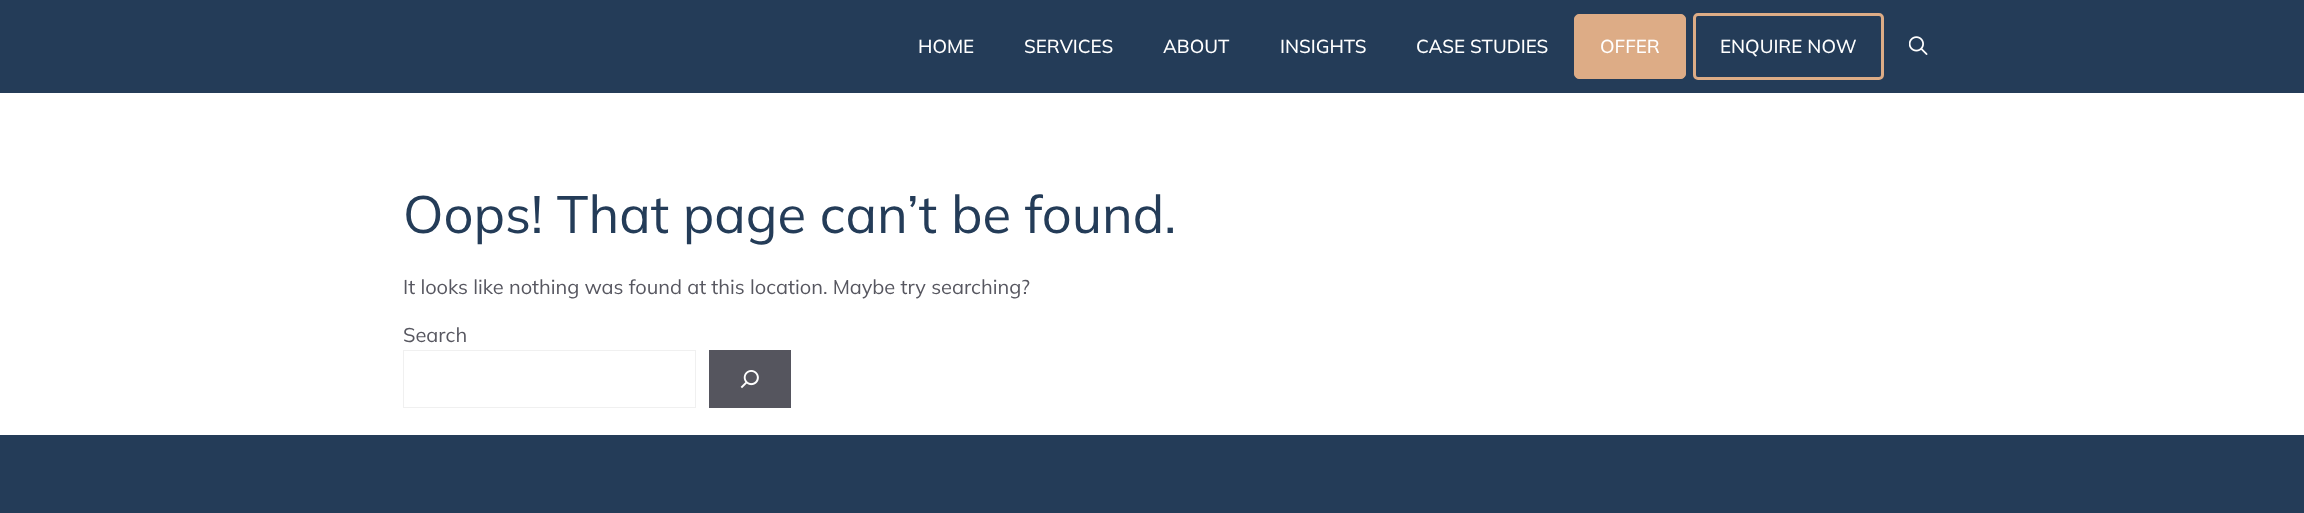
<svg xmlns="http://www.w3.org/2000/svg" xmlns:xlink="http://www.w3.org/1999/xlink" width="2304" height="513" viewBox="0 0 2304 513">
<style>
.cls-1{font:500 18.75px Mulish;fill:#ffffff}
.cls-2{font:52.5px Mulish;fill:#243c58}
.cls-3{font:20px Mulish;fill:#575760}
</style>
<rect width="100%" height="100%" fill="#ffffff"/>
<rect fill="#243c58" x="0" y="0" width="2304" height="93"/>
<rect fill="#ddac86" stroke="#ddac86" x="1574.5" y="14.5" width="111" height="64" rx="4.5"/>
<rect fill="none" stroke="#ddac86" stroke-width="3" x="1694.5" y="14.5" width="188" height="64" rx="3.5"/>
<image xlink:href="image0.png" x="1909" y="36" width="19" height="19"/>
<rect fill="none" stroke="#f0f0f0" x="403.5" y="350.5" width="292" height="57"/>
<rect fill="#55555e" x="709" y="350" width="82" height="58"/>
<image xlink:href="image1.png" x="740" y="370" width="19" height="19"/>
<rect fill="#243c58" x="0" y="435" width="2304" height="78"/>
<text class="cls-1" x="918" y="53">HOME</text>
<text class="cls-1" x="1024" y="53">SERVICES</text>
<text class="cls-1" x="1163" y="53">ABOUT</text>
<text class="cls-1" x="1280" y="53">INSIGHTS</text>
<text class="cls-1" x="1416" y="53">CASE STUDIES</text>
<text class="cls-1" x="1600" y="53">OFFER</text>
<text class="cls-1" x="1720" y="53">ENQUIRE NOW</text>
<text class="cls-2" x="403" y="233">Oops! That page can’t be found.</text>
<text class="cls-3" x="403" y="294">It looks like nothing was found at this location. Maybe try searching?</text>
<text class="cls-3" x="403" y="342">Search</text>
</svg>
